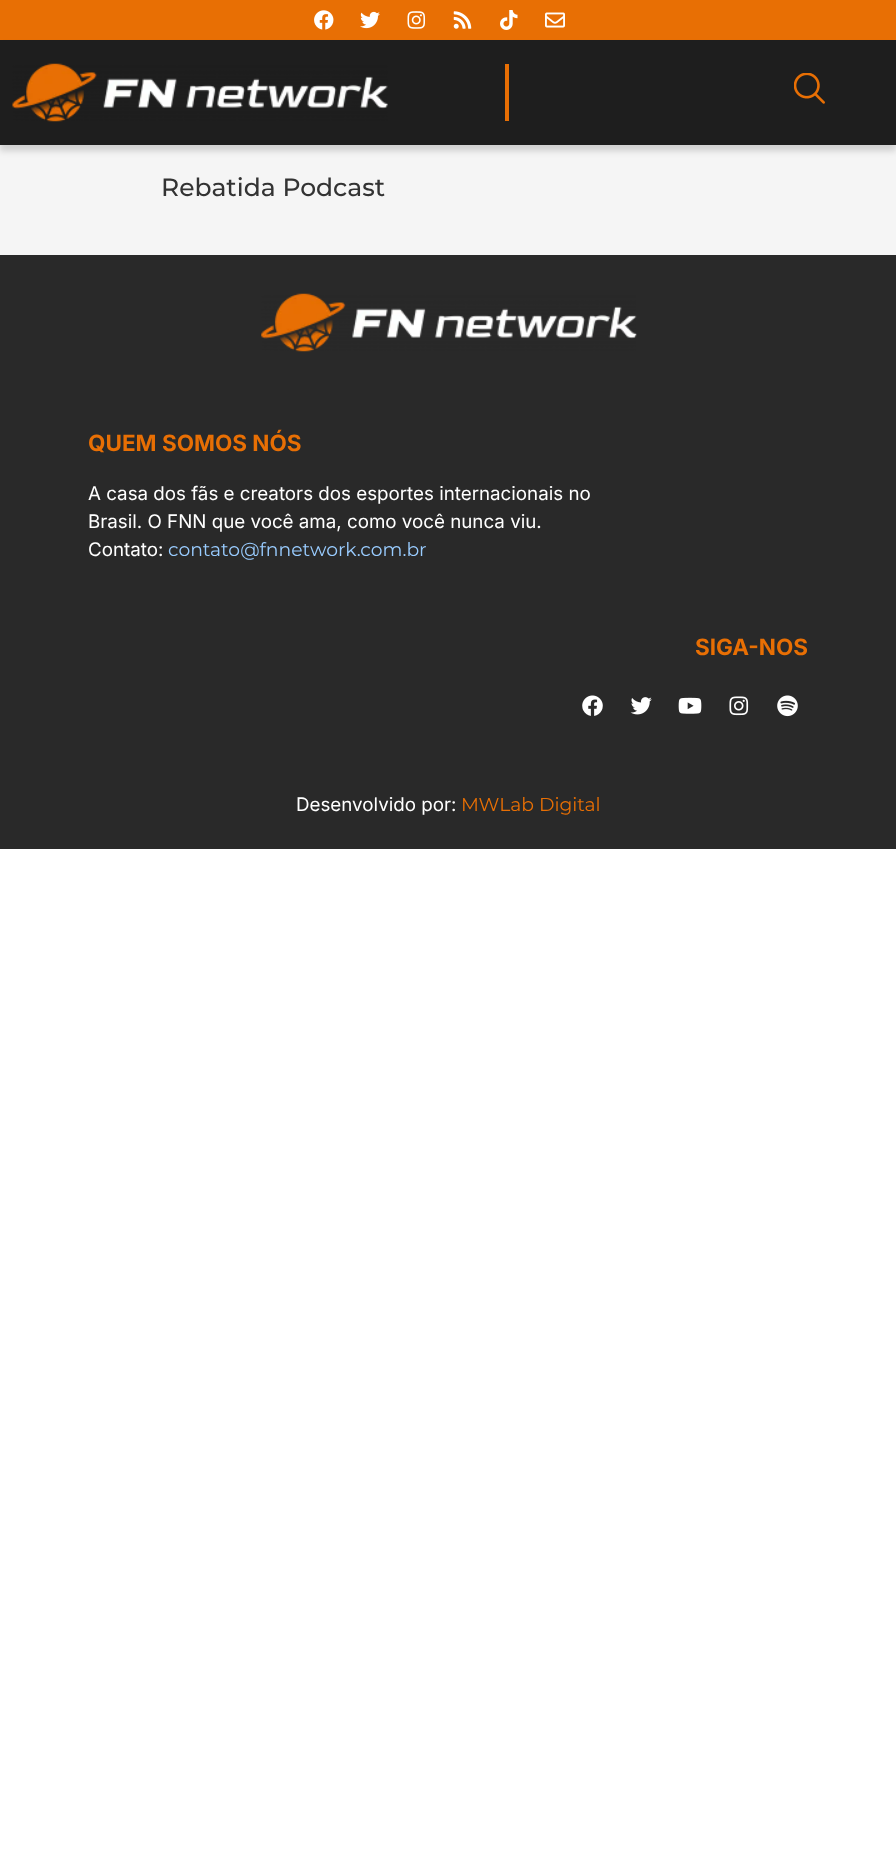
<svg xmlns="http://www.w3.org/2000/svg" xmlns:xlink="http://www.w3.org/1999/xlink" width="896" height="1868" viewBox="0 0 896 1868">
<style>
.cls-1{font:500 25px Montserrat;fill:#333333}
.cls-2{font:bold 22.5px Inter;fill:#e86f04}
.cls-3{font:18.75px Inter;fill:#ffffff}
.cls-4{font:18.75px Montserrat;fill:#99ccff}
.cls-5{font:18.75px Montserrat;fill:#e86f04}
</style>
<rect width="100%" height="100%" fill="#ffffff"/>
<rect fill="#e86f04" x="0" y="0" width="896" height="40"/>
<image xlink:href="image0.png" x="314" y="10" width="20" height="20"/>
<image xlink:href="image1.png" x="360" y="11" width="20" height="18"/>
<image xlink:href="image2.png" x="407" y="11" width="19" height="18"/>
<image xlink:href="image3.png" x="453" y="11" width="19" height="18"/>
<image xlink:href="image4.png" x="500" y="10" width="18" height="20"/>
<image xlink:href="image5.png" x="545" y="12" width="20" height="16"/>
<rect fill="#f5f5f5" x="0" y="145" width="896" height="110"/>
<rect fill="#000000" fill-opacity="0.15" filter="blur(3px)" x="0" y="46" width="896" height="105"/>
<rect fill="#1e1e1e" x="0" y="40" width="896" height="105"/>
<rect fill="#e86f04" x="505" y="64" width="4" height="57"/>
<image xlink:href="image6.png" x="12" y="63" width="376" height="59"/>
<image xlink:href="image7.png" x="794" y="73" width="31" height="31"/>
<rect fill="#292929" x="0" y="255" width="896" height="594"/>
<image xlink:href="image8.png" x="261" y="293" width="376" height="59"/>
<image xlink:href="image9.png" x="582" y="695" width="21" height="21"/>
<image xlink:href="image10.png" x="630" y="697" width="22" height="18"/>
<image xlink:href="image11.png" x="678" y="697" width="24" height="17"/>
<image xlink:href="image12.png" x="729" y="696" width="20" height="20"/>
<image xlink:href="image13.png" x="777" y="695" width="21" height="22"/>
<text class="cls-1" x="161" y="196">Rebatida Podcast</text>
<text class="cls-2" x="88" y="451">QUEM SOMOS NÓS</text>
<text class="cls-3"><tspan x="88" y="500">A casa dos fãs e creators dos esportes internacionais no</tspan><tspan x="88" y="528">Brasil. O FNN que você ama, como você nunca viu.</tspan><tspan x="88" y="556">Contato:</tspan></text>
<text class="cls-4" x="168" y="556">contato@fnnetwork.com.br</text>
<text class="cls-2" x="695" y="655">SIGA-NOS</text>
<text class="cls-3" x="296" y="811">Desenvolvido por:</text>
<text class="cls-5" x="461" y="811">MWLab Digital</text>
</svg>
